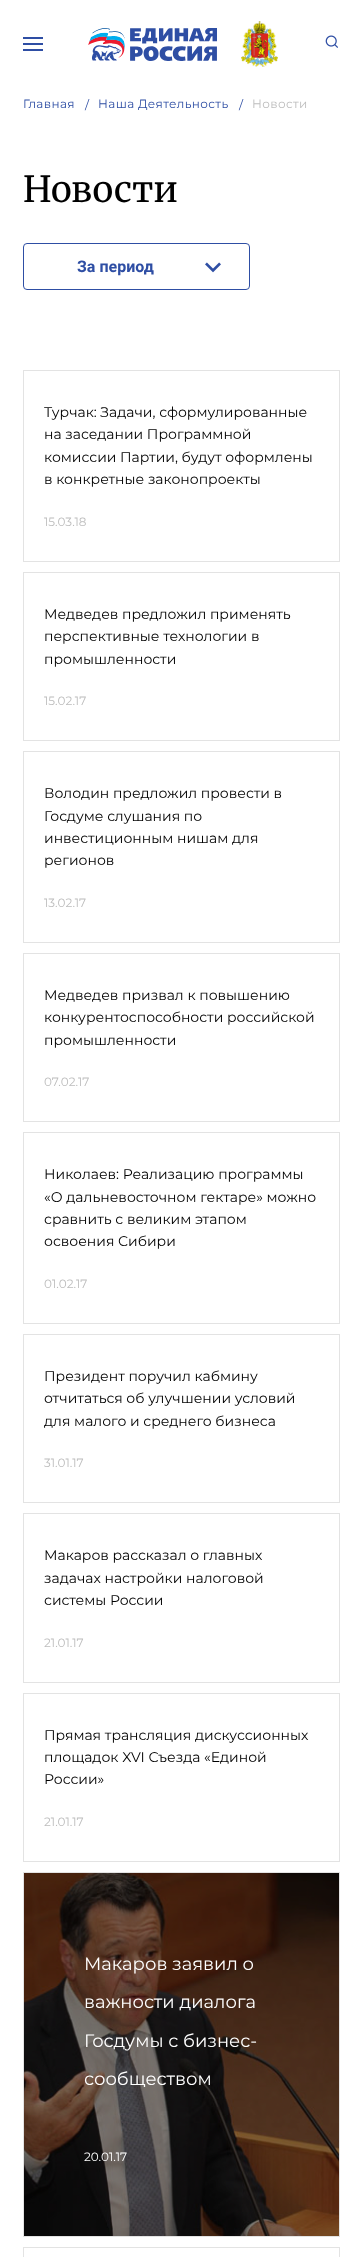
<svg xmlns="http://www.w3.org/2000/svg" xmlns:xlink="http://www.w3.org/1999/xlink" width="363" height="2257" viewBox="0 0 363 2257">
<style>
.cls-1{font:12px Montserrat;letter-spacing:0.4px;fill:#2e4ea4}
.cls-2{font:12px Montserrat;letter-spacing:0.4px;fill:#bdbdbd}
.cls-3{font:36px Merriweather;fill:#000000}
.cls-4{font:bold 16px Roboto;fill:#2e4ea4}
.cls-5{font:14px Montserrat;fill:#000000}
.cls-6{font:12px Montserrat;fill:#bdbdbd}
.cls-7{font:18px Montserrat;fill:#ffffff}
.cls-8{font:12px Montserrat;fill:#ffffff}
</style>
<rect width="100%" height="100%" fill="#ffffff"/>
<rect fill="#2e4ea4" x="23" y="37" width="20" height="2"/>
<rect fill="#2e4ea4" x="23" y="43" width="20" height="2"/>
<rect fill="#2e4ea4" x="23" y="49" width="20" height="2"/>
<image xlink:href="image0.png" x="88" y="28" width="129" height="33"/>
<image xlink:href="image1.png" x="241" y="21" width="37" height="46"/>
<image xlink:href="image2.png" x="325" y="35" width="13" height="13"/>
<rect fill="none" stroke="#2e4ea4" x="23.5" y="243.5" width="226" height="46" rx="3.5"/>
<image xlink:href="image3.png" x="205" y="262" width="16" height="11"/>
<rect fill="none" stroke="#e3e3e3" x="23.5" y="370.5" width="316" height="191"/>
<rect fill="none" stroke="#e3e3e3" x="23.5" y="572.5" width="316" height="168"/>
<rect fill="none" stroke="#e3e3e3" x="23.5" y="751.5" width="316" height="191"/>
<rect fill="none" stroke="#e3e3e3" x="23.5" y="953.5" width="316" height="168"/>
<rect fill="none" stroke="#e3e3e3" x="23.5" y="1132.5" width="316" height="191"/>
<rect fill="none" stroke="#e3e3e3" x="23.5" y="1334.5" width="316" height="168"/>
<rect fill="none" stroke="#e3e3e3" x="23.5" y="1513.5" width="316" height="169"/>
<rect fill="none" stroke="#e3e3e3" x="23.5" y="1693.5" width="316" height="168"/>
<image xlink:href="image4.png" x="24" y="1873" width="315" height="363"/>
<rect fill="none" stroke="#e3e3e3" x="23.5" y="1872.5" width="316" height="364"/>
<rect fill="none" stroke="#e3e3e3" x="23.5" y="2247.5" width="316" height="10"/>
<text class="cls-1" x="23" y="108">Главная</text>
<text class="cls-1" x="85" y="109">/</text>
<text class="cls-1" x="98" y="108">Наша Деятельность</text>
<text class="cls-1" x="239" y="109">/</text>
<text class="cls-2" x="252" y="108">Новости</text>
<text class="cls-3" x="23" y="202">Новости</text>
<text class="cls-4" x="77" y="272">За период</text>
<text class="cls-5"><tspan x="44" y="417">Турчак: Задачи, сформулированные</tspan><tspan x="44" y="439">на заседании Программной</tspan><tspan x="44" y="462">комиссии Партии, будут оформлены</tspan><tspan x="44" y="484">в конкретные законопроекты</tspan></text>
<text class="cls-6" x="44" y="526">15.03.18</text>
<text class="cls-5"><tspan x="44" y="619">Медведев предложил применять</tspan><tspan x="44" y="641">перспективные технологии в</tspan><tspan x="44" y="664">промышленности</tspan></text>
<text class="cls-6" x="44" y="705">15.02.17</text>
<text class="cls-5"><tspan x="44" y="798">Володин предложил провести в</tspan><tspan x="44" y="821">Госдуме слушания по</tspan><tspan x="44" y="843">инвестиционным нишам для</tspan><tspan x="44" y="865">регионов</tspan></text>
<text class="cls-6" x="44" y="907">13.02.17</text>
<text class="cls-5"><tspan x="44" y="1000">Медведев призвал к повышению</tspan><tspan x="44" y="1022">конкурентоспособности российской</tspan><tspan x="44" y="1045">промышленности</tspan></text>
<text class="cls-6" x="44" y="1086">07.02.17</text>
<text class="cls-5"><tspan x="44" y="1179">Николаев: Реализацию программы</tspan><tspan x="44" y="1202">«О дальневосточном гектаре» можно</tspan><tspan x="44" y="1224">сравнить с великим этапом</tspan><tspan x="44" y="1246">освоения Сибири</tspan></text>
<text class="cls-6" x="44" y="1288">01.02.17</text>
<text class="cls-5"><tspan x="44" y="1381">Президент поручил кабмину</tspan><tspan x="44" y="1403">отчитаться об улучшении условий</tspan><tspan x="44" y="1426">для малого и среднего бизнеса</tspan></text>
<text class="cls-6" x="44" y="1467">31.01.17</text>
<text class="cls-5"><tspan x="44" y="1560">Макаров рассказал о главных</tspan><tspan x="44" y="1583">задачах настройки налоговой</tspan><tspan x="44" y="1605">системы России</tspan></text>
<text class="cls-6" x="44" y="1647">21.01.17</text>
<text class="cls-5"><tspan x="44" y="1740">Прямая трансляция дискуссионных</tspan><tspan x="44" y="1762">площадок XVI Съезда «Единой</tspan><tspan x="44" y="1784">России»</tspan></text>
<text class="cls-6" x="44" y="1826">21.01.17</text>
<text class="cls-7" x="84" y="1970">Макаров заявил о</text>
<text class="cls-7" x="84" y="2008">важности диалога</text>
<text class="cls-7" x="84" y="2047">Госдумы с бизнес-</text>
<text class="cls-7" x="84" y="2085">сообществом</text>
<text class="cls-8" x="84" y="2161">20.01.17</text>
</svg>
